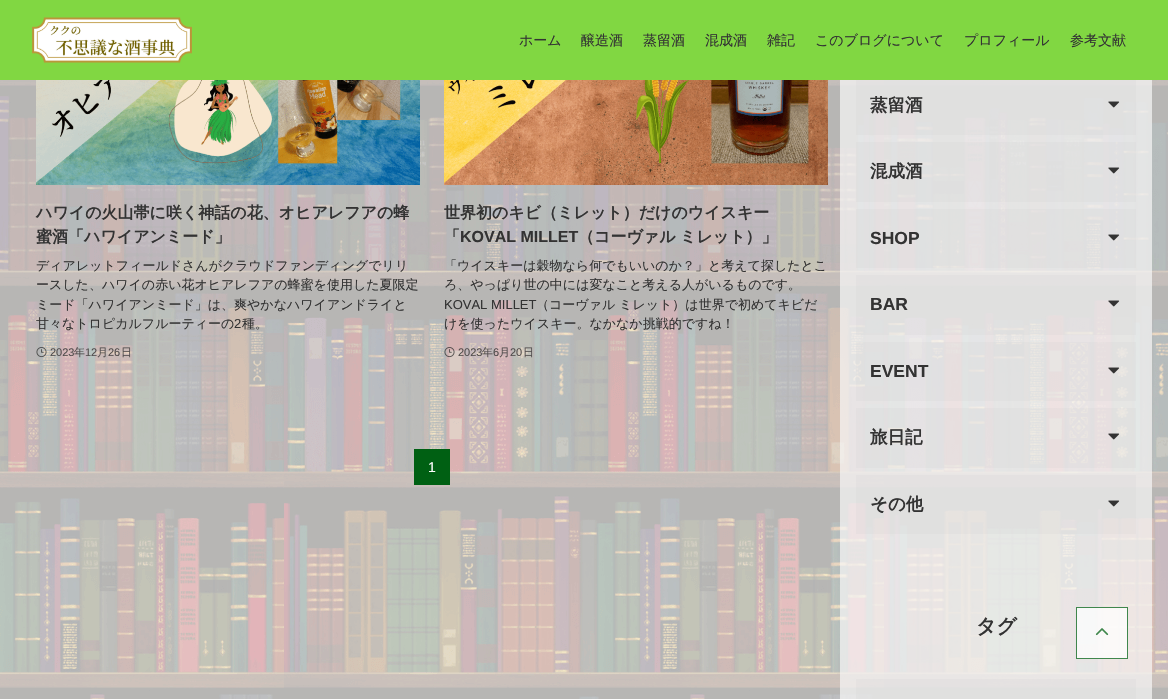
void draw(SkCanvas* canvas) {
  SkPaint paint;
  paint.setAntiAlias(true);
  auto face = [&](const char* family, int weight, float size, bool italic = false) {
    SkFontStyle style(weight, SkFontStyle::kNormal_Width,
      italic ? SkFontStyle::kItalic_Slant : SkFontStyle::kUpright_Slant);
    SkFont result(fontMgr->matchFamilyStyle(family, style), size);
    result.setSubpixel(true);
    return result;
  };
  auto paste = [&](const char* path, float x, float y, float w, float h) {
    auto image = SkImages::DeferredFromEncodedData(SkData::MakeFromFileName(path));
    canvas->drawImageRect(image, SkRect::MakeXYWH(x, y, w, h), SkSamplingOptions());
  };
  canvas->clear(0xffffffff);
  paint.setColor(0xff81d742);
  canvas->drawRect(SkRect::MakeXYWH(0, 0, 1168, 80), paint);
  paste("img/1.png", 32, 17, 160, 46);
  paste("img/2.png", 0, 80, 1168, 619);
  paste("img/3.png", 36, 80, 384, 105);
  paste("img/4.png", 36, 347, 11, 11);
  paste("img/5.png", 444, 80, 384, 105);
  paste("img/6.png", 444, 347, 11, 11);
  {
    const struct { float x, y, w, h; SkColor color; } items[] = {
      {414, 449, 36, 36, 0xff006013},
      {840, 80, 312, 619, 0xb3f7f7f7},
      {856, 80, 280, 55, 0x26c7c7c7},
    };
    for (auto [x, y, w, h, color] : items) {
      paint.setColor(color);
      canvas->drawRect(SkRect::MakeXYWH(x, y, w, h), paint);
    }
  }
  paste("img/7.png", 1108, 101, 12, 7);
  canvas->drawRect(SkRect::MakeXYWH(856, 142, 280, 60), paint);
  paste("img/8.png", 1108, 167, 12, 7);
  canvas->drawRect(SkRect::MakeXYWH(856, 209, 280, 59), paint);
  paste("img/9.png", 1108, 234, 12, 7);
  canvas->drawRect(SkRect::MakeXYWH(856, 275, 280, 60), paint);
  paste("img/10.png", 1108, 300, 12, 7);
  canvas->drawRect(SkRect::MakeXYWH(856, 342, 280, 59), paint);
  paste("img/11.png", 1108, 367, 12, 7);
  canvas->drawRect(SkRect::MakeXYWH(856, 408, 280, 60), paint);
  paste("img/12.png", 1108, 433, 12, 7);
  canvas->drawRect(SkRect::MakeXYWH(856, 475, 280, 59), paint);
  paste("img/7.png", 1108, 500, 12, 7);
  canvas->drawRect(SkRect::MakeXYWH(856, 679, 280, 20), paint);
  paint.setColor(0xbfffffff);
  canvas->drawRect(SkRect::MakeXYWH(1076, 607, 52, 52), paint);
  paint.setStroke(true);
  paint.setStrokeWidth(1);
  paint.setColor(0xbf006013);
  canvas->drawRect(SkRect::MakeXYWH(1076.5f, 607.5f, 51, 51), paint);
  paste("img/13.png", 1095, 628, 14, 8);
  auto f0 = face("WenQuanYi Zen Hei", 500, 14);
  paint.setStroke(false);
  paint.setColor(0xff333333);
  {
    const struct { const char* s; float x, y; } items[] = {
      {"ホーム", 519, 45},
      {"醸造酒", 581, 45},
      {"蒸留酒", 643, 45},
      {"混成酒", 705, 45},
      {"雑記", 767, 45},
      {"このブログについて", 815, 45},
      {"プロフィール", 964, 45},
      {"参考文献", 1070, 45},
    };
    for (auto [s, x, y] : items) {
      canvas->drawString(s, x, y, f0, paint);
    }
  }
  auto f1 = face("WenQuanYi Zen Hei", 700, 16);
  canvas->drawString("ハワイの火山帯に咲く神話の花、オヒアレフアの蜂", 36, 218, f1, paint);
  canvas->drawString("蜜酒「ハワイアンミード」", 36, 242, f1, paint);
  auto f2 = face("WenQuanYi Zen Hei", 500, 13);
  {
    const struct { const char* s; float x, y; } items[] = {
      {"ディアレットフィールドさんがクラウドファンディングでリリ", 36, 270},
      {"ースした、ハワイの赤い花オヒアレフアの蜂蜜を使用した夏限定", 36, 289},
      {"ミード「ハワイアンミード」は、爽やかなハワイアンドライと", 36, 309},
      {"甘々なトロピカルフルーティーの", 36, 328},
    };
    for (auto [s, x, y] : items) {
      canvas->drawString(s, x, y, f2, paint);
    }
  }
  auto f3 = face("Liberation Sans", 400, 13);
  canvas->drawString("2", 234, 328, f3, paint);
  canvas->drawString("種。", 242, 328, f2, paint);
  auto f4 = face("Liberation Sans", 400, 11);
  paint.setColor(0xff524e4e);
  canvas->drawString("2023", 50, 356, f4, paint);
  auto f5 = face("WenQuanYi Zen Hei", 500, 11);
  canvas->drawString("年", 74, 356, f5, paint);
  canvas->drawString("12", 85, 356, f4, paint);
  canvas->drawString("月", 97, 356, f5, paint);
  canvas->drawString("26", 108, 356, f4, paint);
  canvas->drawString("日", 121, 356, f5, paint);
  paint.setColor(0xff333333);
  canvas->drawString("世界初のキビ（ミレット）だけのウイスキー", 444, 218, f1, paint);
  canvas->drawString("「", 444, 242, f1, paint);
  auto f6 = face("Liberation Sans", 700, 16);
  canvas->drawString("KOVAL MILLET", 460, 242, f6, paint);
  canvas->drawString("（コーヴァル", 578, 242, f1, paint);
  canvas->drawString("ミレット）」", 680, 242, f1, paint);
  canvas->drawString("「ウイスキーは穀物なら何でもいいのか？」と考えて探したとこ", 444, 270, f2, paint);
  canvas->drawString("ろ、やっぱり世の中には変なこと考える人がいるものです。", 444, 289, f2, paint);
  canvas->drawString("KOVAL MILLET", 444, 309, f3, paint);
  canvas->drawString("（コーヴァル ミレット）は世界で初めてキビだ", 536, 309, f2, paint);
  canvas->drawString("けを使ったウイスキー。なかなか挑戦的ですね！", 444, 328, f2, paint);
  paint.setColor(0xff524e4e);
  canvas->drawString("2023", 458, 356, f4, paint);
  canvas->drawString("年", 482, 356, f5, paint);
  canvas->drawString("6", 493, 356, f4, paint);
  canvas->drawString("月", 499, 356, f5, paint);
  canvas->drawString("20", 510, 356, f4, paint);
  canvas->drawString("日", 523, 356, f5, paint);
  auto f7 = face("Liberation Sans", 400, 14);
  paint.setColor(0xffffffff);
  canvas->drawString("1", 428, 472, f7, paint);
  auto f8 = face("WenQuanYi Zen Hei", 700, 17.5f);
  paint.setColor(0xff333333);
  canvas->drawString("蒸留酒", 870, 111, f8, paint);
  canvas->drawString("混成酒", 870, 177, f8, paint);
  auto f9 = face("Liberation Sans", 700, 17.5f);
  {
    const struct { const char* s; float x, y; } items[] = {
      {"SHOP", 870, 244},
      {"BAR", 870, 310},
      {"EVENT", 870, 377},
    };
    for (auto [s, x, y] : items) {
      canvas->drawString(s, x, y, f9, paint);
    }
  }
  canvas->drawString("旅日記", 870, 443, f8, paint);
  canvas->drawString("その他", 870, 510, f8, paint);
  auto f10 = face("WenQuanYi Zen Hei", 700, 20);
  canvas->drawString("タグ", 976, 633, f10, paint);
}
